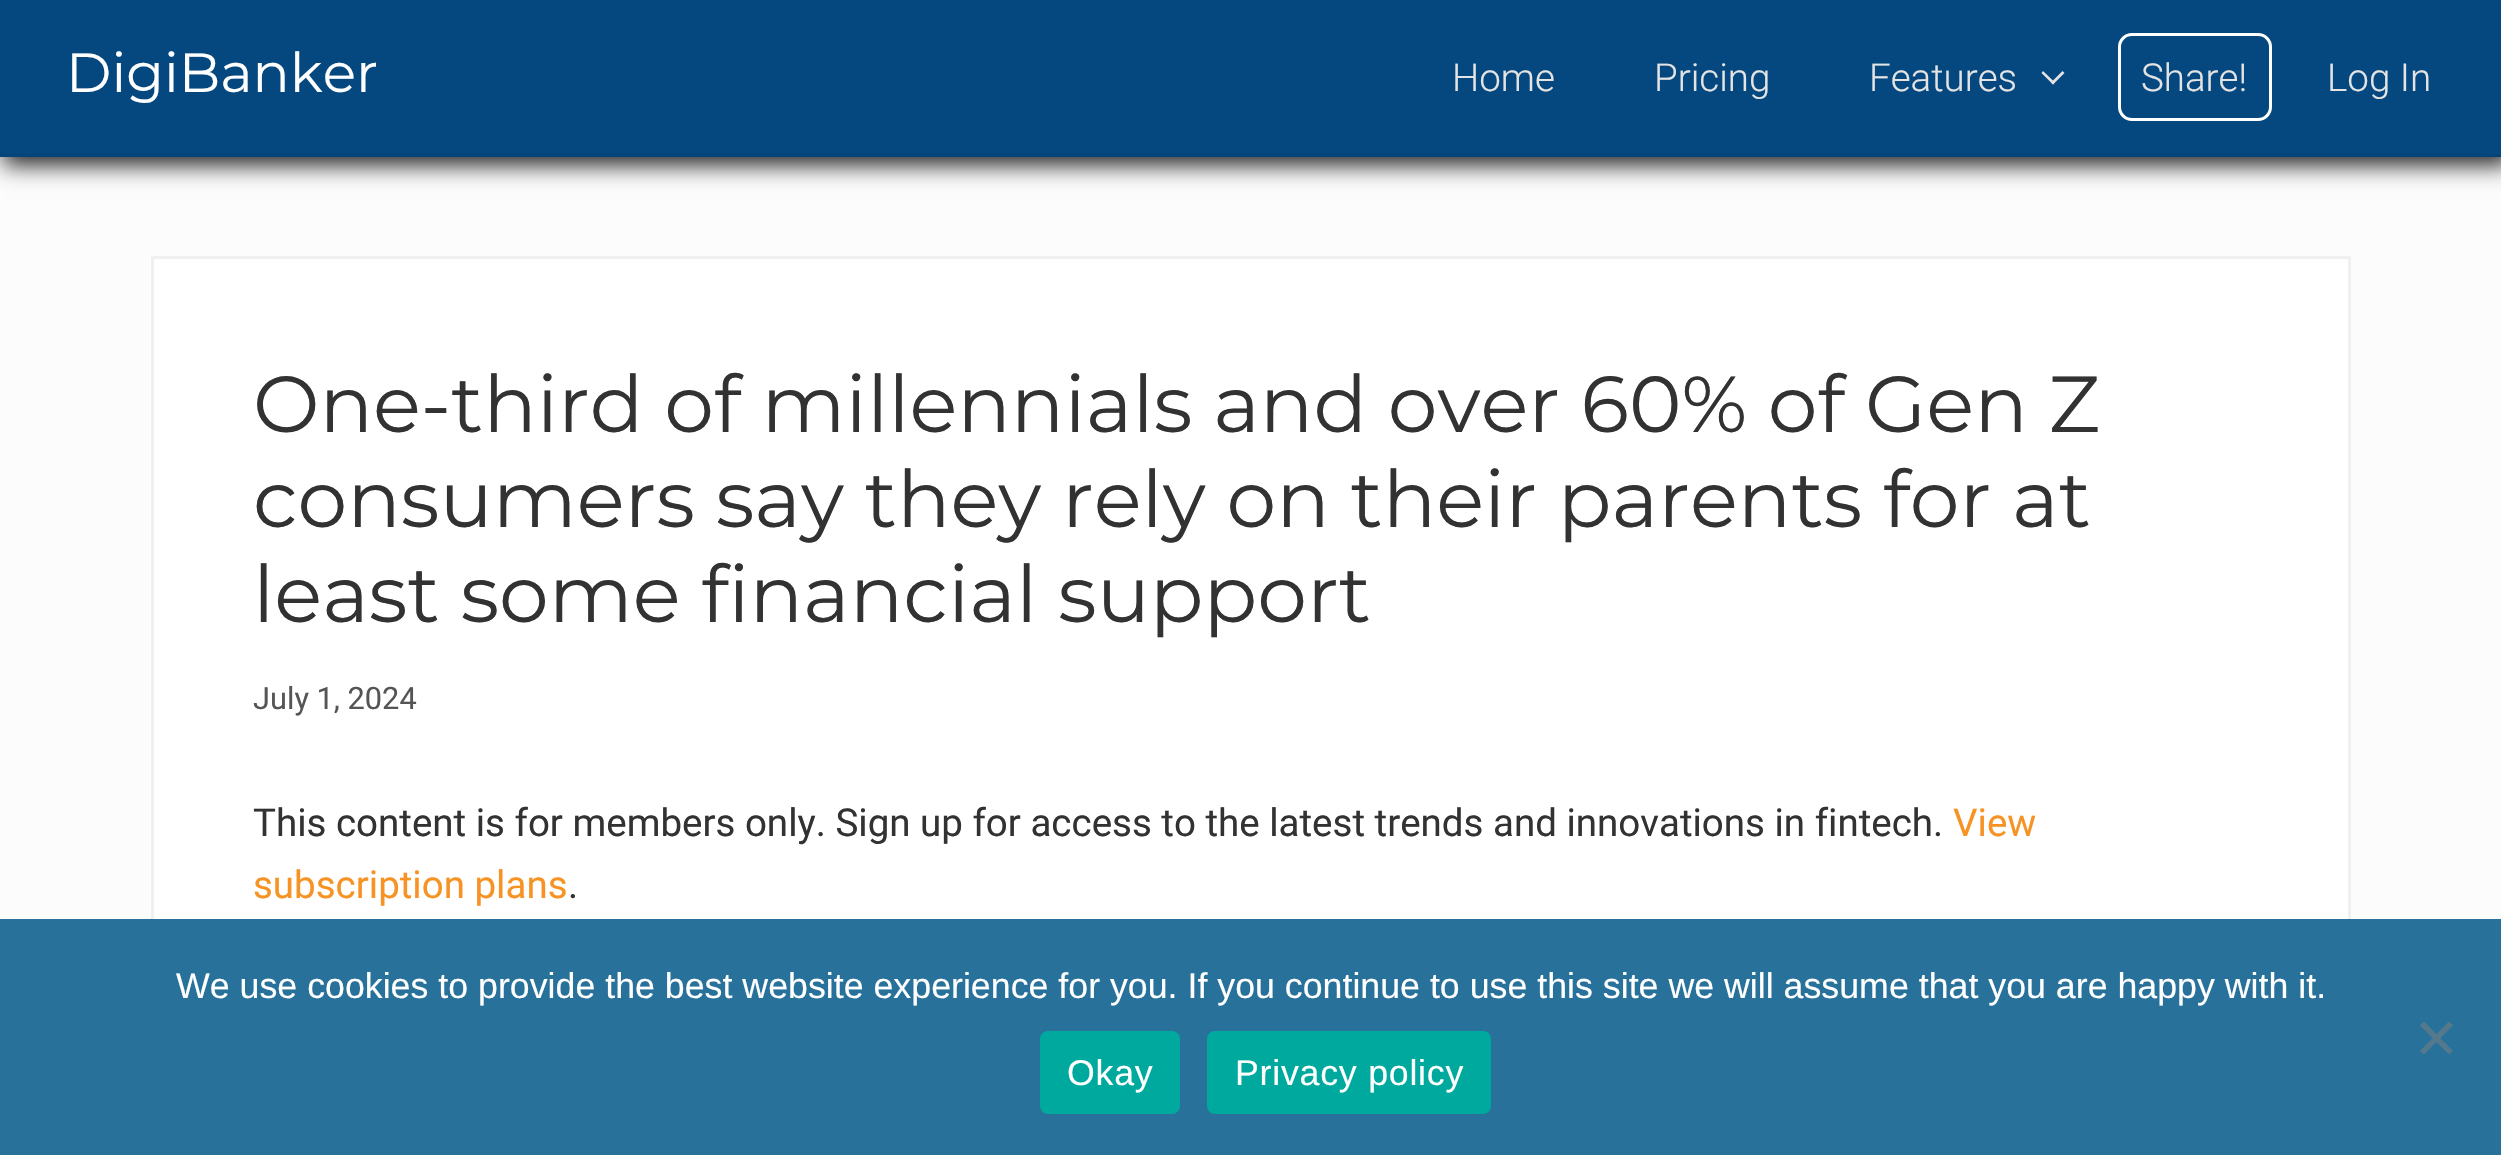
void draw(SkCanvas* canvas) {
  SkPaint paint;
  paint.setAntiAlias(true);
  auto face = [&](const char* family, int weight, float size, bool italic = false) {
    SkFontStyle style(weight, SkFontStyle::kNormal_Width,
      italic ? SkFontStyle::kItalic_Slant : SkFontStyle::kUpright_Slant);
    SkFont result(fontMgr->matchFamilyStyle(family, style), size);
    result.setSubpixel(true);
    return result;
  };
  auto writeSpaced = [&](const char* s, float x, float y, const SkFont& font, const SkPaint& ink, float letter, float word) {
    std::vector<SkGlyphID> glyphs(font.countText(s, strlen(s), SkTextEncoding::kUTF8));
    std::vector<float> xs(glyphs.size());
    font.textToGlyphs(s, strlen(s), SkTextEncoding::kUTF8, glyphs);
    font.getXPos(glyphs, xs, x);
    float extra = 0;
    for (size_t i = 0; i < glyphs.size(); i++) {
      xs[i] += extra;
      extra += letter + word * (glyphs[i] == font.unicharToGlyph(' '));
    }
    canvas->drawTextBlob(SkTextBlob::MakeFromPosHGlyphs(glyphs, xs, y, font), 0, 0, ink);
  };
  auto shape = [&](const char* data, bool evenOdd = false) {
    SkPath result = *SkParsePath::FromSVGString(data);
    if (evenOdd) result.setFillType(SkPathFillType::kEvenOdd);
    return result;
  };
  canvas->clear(0xfffcfcfc);
  paint.setColor(0xff222222);
  paint.setMaskFilter(SkMaskFilter::MakeBlur(kNormal_SkBlurStyle, 11));
  canvas->drawRect(SkRect::MakeXYWH(3, 3, 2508, 162), paint);
  paint.setMaskFilter(nullptr);
  paint.setColor(0xff05487f);
  canvas->drawRect(SkRect::MakeXYWH(0, 0, 2501, 154), paint);
  paint.setColor(0xff054479);
  canvas->drawRect(SkRect::MakeXYWH(0, 154, 2501, 3), paint);
  paint.setColor(0xffe4e4e4);
  canvas->drawPath(shape("M2062.5 71L2064.5 73L2053 84.5L2051 82.5Z"), paint);
  canvas->drawPath(shape("M2043 71L2055 82.5L2053 84.5L2041.5 73Z"), paint);
  paint.setStroke(true);
  paint.setStrokeWidth(3);
  paint.setColor(0xffffffff);
  canvas->drawRoundRect(SkRect::MakeXYWH(2119.5f, 34.5f, 151, 85), 12.5f, 12.5f, paint);
  paint.setStroke(false);
  canvas->drawRect(SkRect::MakeXYWH(154, 259, 2194, 660), paint);
  paint.setStroke(true);
  paint.setColor(0xfff0f0f0);
  canvas->drawRect(SkRect::MakeXYWH(152.5f, 257.5f, 2197, 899), paint);
  paint.setStroke(false);
  paint.setColor(0xff27719a);
  canvas->drawRect(SkRect::MakeXYWH(0, 919, 2501, 236), paint);
  paint.setColor(0xff54798d);
  canvas->drawPath(shape("M2449 1021.5L2453 1025.5L2424 1054.5L2420 1051Z"), paint);
  canvas->drawPath(shape("M2420 1025.5L2424 1021.5L2453 1051L2449 1054.5Z"), paint);
  paint.setColor(0xff00a99d);
  canvas->drawRoundRect(SkRect::MakeXYWH(1040, 1031, 140, 83), 8, 8, paint);
  canvas->drawRoundRect(SkRect::MakeXYWH(1207, 1031, 284, 83), 8, 8, paint);
  auto f0 = face("Montserrat", 400, 55);
  paint.setColor(0xffffffff);
  canvas->drawString("DigiBanker", 66, 92, f0, paint);
  auto f1 = face("Roboto", 300, 38.5f);
  paint.setColor(0xffe4e4e4);
  {
    const struct { const char* s; float x, y; } items[] = {
      {"Home", 1452, 91},
      {"Pricing", 1654, 91},
      {"Features", 1869, 91},
      {"Share!", 2141, 91},
      {"Log In", 2327, 91},
    };
    for (auto [s, x, y] : items) {
      canvas->drawString(s, x, y, f1, paint);
    }
  }
  auto f2 = face("Montserrat", 400, 79.2f);
  paint.setColor(0xff323232);
  {
    const struct { const char* s; float x, y; } items[] = {
      {"One-third of millennials and over 60% of Gen Z", 253, 432},
      {"consumers say they rely on their parents for at", 253, 527},
      {"least some financial support", 253, 622},
    };
    for (auto [s, x, y] : items) {
      canvas->drawString(s, x, y, f2, paint);
    }
  }
  auto f3 = face("Roboto", 400, 30.75f);
  paint.setColor(0xff555555);
  canvas->drawString("July 1, 2024", 253, 709, f3, paint);
  auto f4 = face("Roboto", 400, 38.5f);
  paint.setColor(0xff323232);
  canvas->drawString("This content is for members only. Sign up for access to the latest trends and innovations in fintech.", 253, 836, f4, paint);
  paint.setColor(0xfff79324);
  canvas->drawString("View", 1953, 836, f4, paint);
  canvas->drawString("subscription plans", 253, 898, f4, paint);
  paint.setColor(0xff323232);
  canvas->drawString(".", 568, 898, f4, paint);
  auto f5 = face("Liberation Sans", 400, 35.75f);
  paint.setColor(0xffffffff);
  canvas->drawString("We use cookies to provide the best website experience for you. If you continue to use this site we will assume that you are happy with it.", 176, 998, f5, paint);
  writeSpaced("Okay", 1067, 1085, f5, paint, 0.75f, 0);
  writeSpaced("Privacy policy", 1235, 1085, f5, paint, 0.75f, 0);
}
